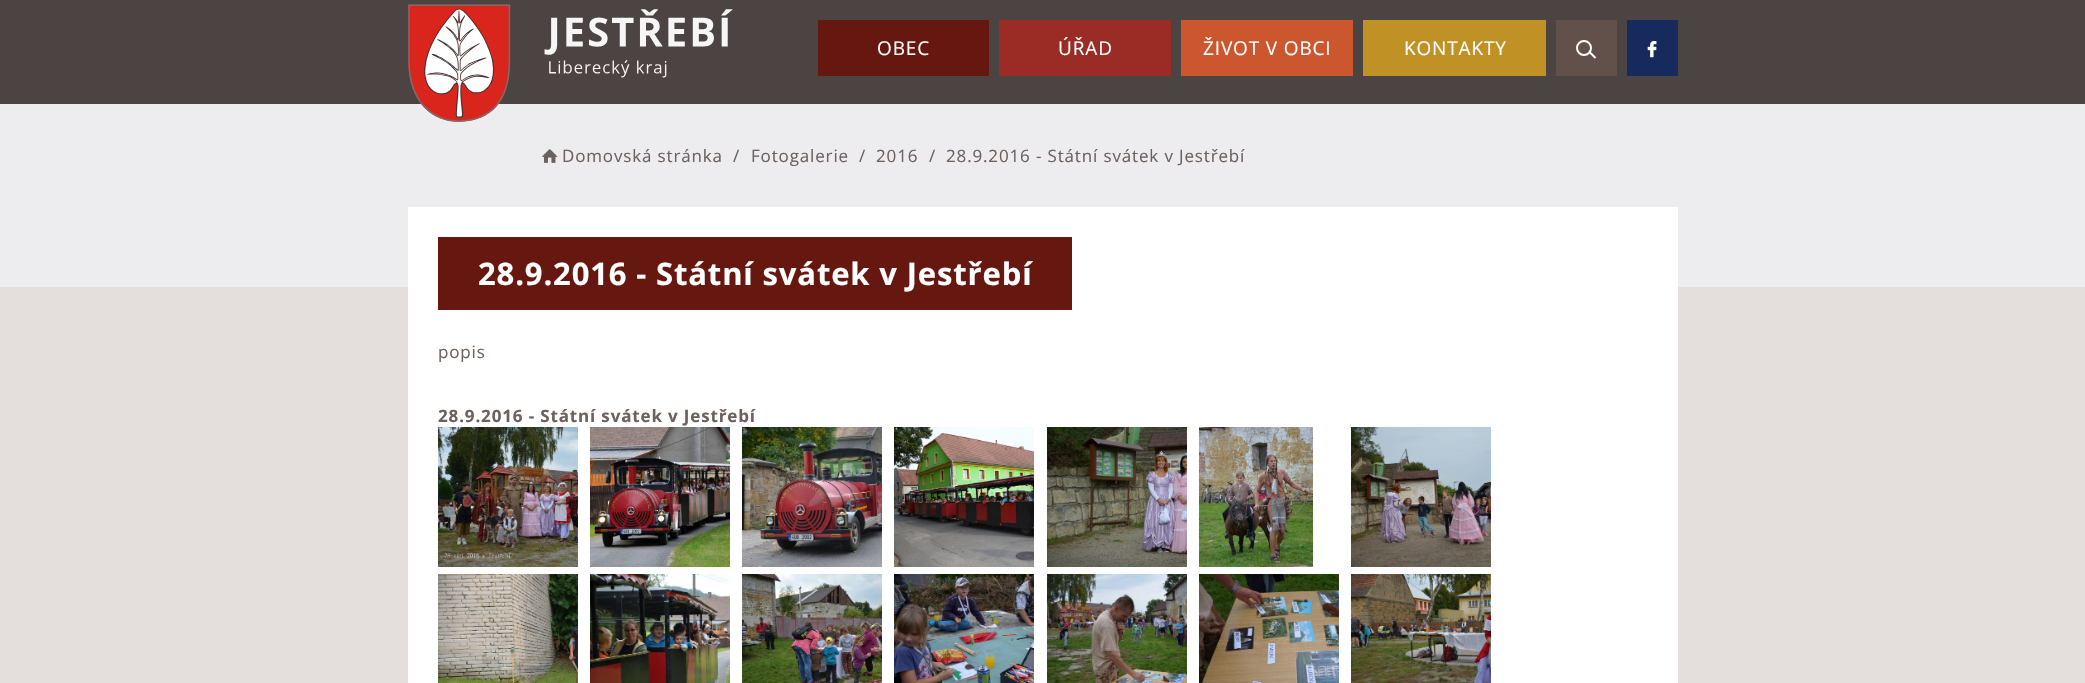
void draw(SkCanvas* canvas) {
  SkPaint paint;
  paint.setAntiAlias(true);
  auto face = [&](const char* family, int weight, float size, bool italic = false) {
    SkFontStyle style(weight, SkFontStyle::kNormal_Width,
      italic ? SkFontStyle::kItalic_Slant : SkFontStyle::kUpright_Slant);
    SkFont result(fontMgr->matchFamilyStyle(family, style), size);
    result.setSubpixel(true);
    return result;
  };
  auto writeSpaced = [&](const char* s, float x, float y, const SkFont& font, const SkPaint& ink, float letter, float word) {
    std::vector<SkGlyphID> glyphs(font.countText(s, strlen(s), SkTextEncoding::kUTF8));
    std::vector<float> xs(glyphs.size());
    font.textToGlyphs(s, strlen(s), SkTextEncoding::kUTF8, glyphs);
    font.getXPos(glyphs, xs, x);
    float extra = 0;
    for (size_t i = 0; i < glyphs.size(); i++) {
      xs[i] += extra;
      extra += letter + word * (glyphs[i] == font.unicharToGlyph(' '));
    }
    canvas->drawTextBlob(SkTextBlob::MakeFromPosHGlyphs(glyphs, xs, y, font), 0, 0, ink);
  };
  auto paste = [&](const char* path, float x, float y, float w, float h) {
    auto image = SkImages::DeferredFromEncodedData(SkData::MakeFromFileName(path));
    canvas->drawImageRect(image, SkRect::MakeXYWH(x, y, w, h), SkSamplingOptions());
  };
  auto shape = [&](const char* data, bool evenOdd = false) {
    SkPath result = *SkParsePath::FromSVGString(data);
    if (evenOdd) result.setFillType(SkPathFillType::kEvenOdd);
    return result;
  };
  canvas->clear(0xffe4dedc);
  paint.setColor(0xff4c4343);
  canvas->drawRect(SkRect::MakeXYWH(0, 0, 2085, 104), paint);
  paint.setColor(0xffededef);
  canvas->drawRect(SkRect::MakeXYWH(0, 104, 2085, 183), paint);
  paste("img/1.png", 408, 4, 325, 118);
  {
    const struct { float x, y, w, h; SkColor color; } items[] = {
      {818, 20, 171, 56, 0xff661810},
      {999, 20, 172, 56, 0xff9a2b25},
      {1181, 20, 172, 56, 0xffcc562e},
      {1363, 20, 183, 56, 0xffc09226},
      {1556, 20, 61, 56, 0xff62514b},
    };
    for (auto [x, y, w, h, color] : items) {
      paint.setColor(color);
      canvas->drawRect(SkRect::MakeXYWH(x, y, w, h), paint);
    }
  }
  paint.setStroke(true);
  paint.setStrokeWidth(2);
  paint.setColor(0xfffffff8);
  canvas->drawCircle(1584, 48, 7, paint);
  canvas->drawPath(shape("M1590 52.5L1595.5 58"), paint);
  paint.setStroke(false);
  paint.setColor(0xff172a5e);
  canvas->drawRect(SkRect::MakeXYWH(1627, 20, 51, 56), paint);
  paste("img/2.png", 1647, 41, 10, 17);
  paste("img/3.png", 542, 149, 16, 14);
  paint.setColor(0xffffffff);
  canvas->drawRect(SkRect::MakeXYWH(408, 207, 1270, 476), paint);
  paint.setColor(0xff661810);
  canvas->drawRect(SkRect::MakeXYWH(438, 237, 634, 73), paint);
  paste("img/4.png", 438, 427, 140, 140);
  paste("img/5.png", 590, 427, 140, 140);
  paste("img/6.png", 742, 427, 140, 140);
  paste("img/7.png", 894, 427, 140, 140);
  paste("img/8.png", 1047, 427, 140, 140);
  paste("img/9.png", 1199, 427, 114, 140);
  paste("img/10.png", 1351, 427, 140, 140);
  paste("img/11.png", 438, 574, 140, 109);
  paste("img/12.png", 590, 574, 140, 109);
  paste("img/13.png", 742, 574, 140, 109);
  paste("img/14.png", 894, 574, 140, 109);
  paste("img/15.png", 1047, 574, 140, 109);
  paste("img/16.png", 1199, 574, 140, 109);
  paste("img/17.png", 1351, 574, 140, 109);
  auto f0 = face("Open Sans", 400, 19);
  paint.setColor(0xffffffff);
  {
    const struct { const char* s; float x, y; } items[] = {
      {"OBEC", 877, 55},
      {"ÚŘAD", 1058, 55},
      {"ŽIVOT V OBCI", 1203, 55},
      {"KONTAKTY", 1404, 55},
    };
    for (auto [s, x, y] : items) {
      writeSpaced(s, x, y, f0, paint, 0.85f, 0);
    }
  }
  auto f1 = face("Open Sans", 400, 17);
  paint.setColor(0xff6d615d);
  {
    const struct { const char* s; float x, y; } items[] = {
      {"Domovská stránka", 562, 162},
      {"/", 733, 162},
      {"Fotogalerie", 751, 162},
      {"/", 859, 162},
      {"2016", 876, 162},
      {"/", 929, 162},
      {"28.9.2016 - Státní svátek v Jestřebí", 946, 162},
    };
    for (auto [s, x, y] : items) {
      writeSpaced(s, x, y, f1, paint, 0.85f, 0);
    }
  }
  auto f2 = face("Open Sans", 700, 31);
  paint.setColor(0xffffffff);
  writeSpaced("28.9.2016 - Státní svátek v Jestřebí", 478, 285, f2, paint, 0.85f, 0);
  paint.setColor(0xff6d615d);
  writeSpaced("popis", 438, 358, f1, paint, 0.85f, 0);
  auto f3 = face("Open Sans", 700, 17);
  writeSpaced("28.9.2016 - Státní svátek v Jestřebí", 438, 422, f3, paint, 0.85f, 0);
}
